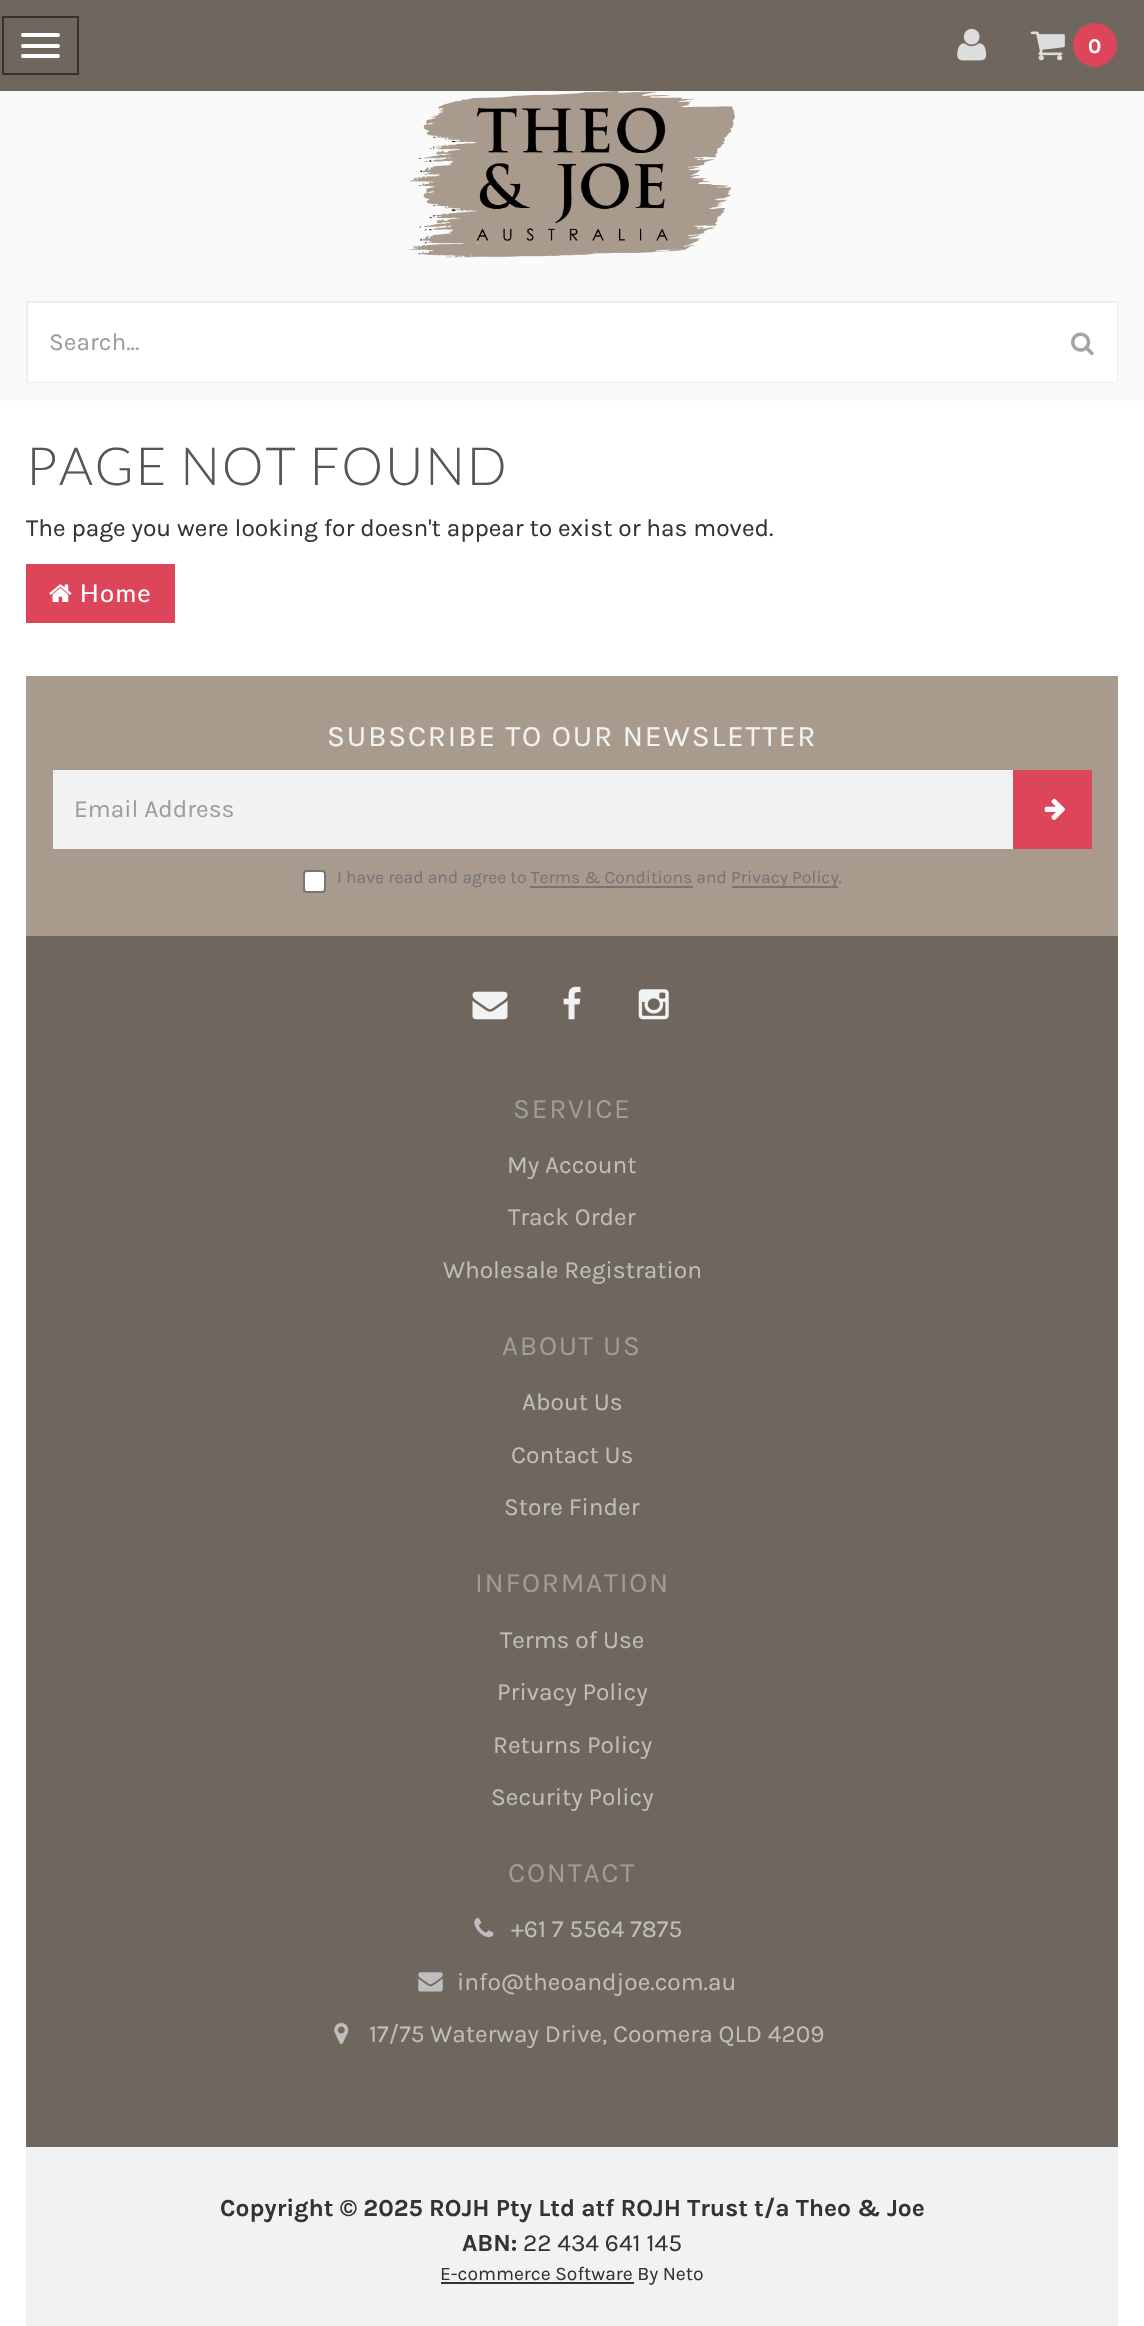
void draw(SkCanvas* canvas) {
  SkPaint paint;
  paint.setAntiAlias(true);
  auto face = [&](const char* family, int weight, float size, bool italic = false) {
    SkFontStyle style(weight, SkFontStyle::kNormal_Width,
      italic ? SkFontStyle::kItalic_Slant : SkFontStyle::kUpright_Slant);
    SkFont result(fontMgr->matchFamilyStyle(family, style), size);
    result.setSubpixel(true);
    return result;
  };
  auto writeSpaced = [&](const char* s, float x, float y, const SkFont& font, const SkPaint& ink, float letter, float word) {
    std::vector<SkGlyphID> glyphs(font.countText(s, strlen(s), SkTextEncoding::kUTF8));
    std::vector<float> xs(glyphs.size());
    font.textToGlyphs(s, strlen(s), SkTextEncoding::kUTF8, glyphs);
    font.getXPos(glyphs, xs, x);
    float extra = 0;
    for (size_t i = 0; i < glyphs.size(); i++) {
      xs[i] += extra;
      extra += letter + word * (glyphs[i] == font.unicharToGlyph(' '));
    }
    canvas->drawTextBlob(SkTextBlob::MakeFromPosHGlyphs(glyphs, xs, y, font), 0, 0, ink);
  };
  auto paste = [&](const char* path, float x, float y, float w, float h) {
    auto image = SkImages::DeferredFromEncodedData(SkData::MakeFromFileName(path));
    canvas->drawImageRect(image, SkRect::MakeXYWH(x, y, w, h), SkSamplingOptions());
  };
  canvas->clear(0xffffffff);
  paint.setColor(0xff6f665d);
  canvas->drawRect(SkRect::MakeXYWH(0, 0, 1144, 91), paint);
  paint.setStroke(true);
  paint.setStrokeWidth(2);
  paint.setColor(0xff333333);
  canvas->drawRect(SkRect::MakeXYWH(3, 17, 75, 57), paint);
  paint.setStroke(false);
  paint.setColor(0xffffffff);
  canvas->drawRoundRect(SkRect::MakeXYWH(21, 33, 39, 4), 2, 2, paint);
  canvas->drawRoundRect(SkRect::MakeXYWH(21, 44, 39, 4), 2, 2, paint);
  canvas->drawRoundRect(SkRect::MakeXYWH(21, 54, 39, 4), 2, 2, paint);
  paste("img/1.png", 957, 28, 30, 33);
  paste("img/2.png", 1030, 31, 35, 30);
  paint.setColor(0xffdc455a);
  canvas->drawCircle(1095, 45, 22, paint);
  paint.setColor(0xfffafafa);
  canvas->drawRect(SkRect::MakeXYWH(0, 91, 1144, 310), paint);
  paste("img/3.png", 409, 91, 326, 167);
  paint.setStroke(true);
  paint.setColor(0xffeeeeee);
  canvas->drawRect(SkRect::MakeXYWH(27, 302, 1090, 80), paint);
  paint.setStroke(false);
  paint.setColor(0xffffffff);
  canvas->drawRect(SkRect::MakeXYWH(28, 303, 1089, 79), paint);
  paste("img/4.png", 1071, 332, 23, 24);
  paint.setColor(0xffdc455a);
  canvas->drawRect(SkRect::MakeXYWH(26, 564, 149, 59), paint);
  paste("img/5.png", 49, 584, 23, 18);
  {
    const struct { float x, y, w, h; SkColor color; } items[] = {
      {26, 676, 1092, 260, 0xffa89a8d},
      {53, 770, 960, 79, 0xfff1f2f2},
      {1013, 770, 79, 79, 0xffdc455a},
    };
    for (auto [x, y, w, h, color] : items) {
      paint.setColor(color);
      canvas->drawRect(SkRect::MakeXYWH(x, y, w, h), paint);
    }
  }
  paste("img/6.png", 1044, 798, 21, 22);
  paint.setColor(0xffffffff);
  canvas->drawRoundRect(SkRect::MakeXYWH(304, 871, 21, 21), 3, 3, paint);
  paint.setStroke(true);
  paint.setColor(0xff767676);
  canvas->drawRoundRect(SkRect::MakeXYWH(304, 871, 21, 21), 3, 3, paint);
  paint.setStroke(false);
  {
    const struct { float x, y, w, h; SkColor color; } items[] = {
      {732, 886, 106, 2, 0xff757575},
      {530, 886, 163, 2, 0xff757575},
      {26, 936, 1092, 1211, 0xff6f665d},
    };
    for (auto [x, y, w, h, color] : items) {
      paint.setColor(color);
      canvas->drawRect(SkRect::MakeXYWH(x, y, w, h), paint);
    }
  }
  paste("img/7.png", 472, 991, 36, 29);
  paste("img/8.png", 563, 986, 18, 34);
  paste("img/9.png", 638, 989, 31, 31);
  paste("img/10.png", 474, 1918, 20, 20);
  paste("img/11.png", 418, 1972, 25, 20);
  paste("img/12.png", 334, 2023, 15, 21);
  paint.setColor(0xfff1f2f2);
  canvas->drawRect(SkRect::MakeXYWH(26, 2147, 1092, 179), paint);
  paint.setColor(0xff333333);
  canvas->drawRect(SkRect::MakeXYWH(441, 2282, 193, 2), paint);
  auto f0 = face("Karla", 700, 21);
  paint.setColor(0xffffffff);
  canvas->drawString("0", 1088, 53, f0, paint);
  auto f1 = face("Karla", 400, 24.5f);
  paint.setColor(0xff9d9d9d);
  canvas->drawString("Search...", 49, 350, f1, paint);
  auto f2 = face("Lato", 300, 52.5f);
  paint.setColor(0xff55555a);
  writeSpaced("PAGE NOT FOUND", 26, 485, f2, paint, 1.75f, 0);
  paint.setColor(0xff333333);
  canvas->drawString("The page you were looking for doesn't appear to exist or has moved.", 26, 536, f1, paint);
  auto f3 = face("Lato", 400, 24.5f);
  paint.setColor(0xffffffff);
  writeSpaced("Home", 80, 602, f3, paint, 1.75f, 0);
  auto f4 = face("Karla", 400, 29.75f);
  paint.setColor(0xfff1f2f2);
  writeSpaced("SUBSCRIBE TO OUR NEWSLETTER", 327, 746, f4, paint, 1.75f, 0);
  paint.setColor(0xff9d9d9d);
  canvas->drawString("Email Address", 74, 817, f1, paint);
  auto f5 = face("Karla", 400, 17.5f);
  paint.setColor(0xff757575);
  canvas->drawString("I have read and agree to Terms & Conditions and", 337, 883, f5, paint);
  canvas->drawString("Privacy Policy.", 731, 883, f5, paint);
  auto f6 = face("Karla", 400, 28);
  paint.setColor(0xff9d9d9d);
  writeSpaced("SERVICE", 513, 1118, f6, paint, 1.75f, 0);
  paint.setColor(0xffbebebe);
  {
    const struct { const char* s; float x, y; } items[] = {
      {"My Account", 507, 1173},
      {"Track Order", 508, 1225},
      {"Wholesale Registration", 443, 1278},
    };
    for (auto [s, x, y] : items) {
      canvas->drawString(s, x, y, f1, paint);
    }
  }
  paint.setColor(0xff9d9d9d);
  writeSpaced("ABOUT US", 502, 1355, f6, paint, 1.75f, 0);
  paint.setColor(0xffbebebe);
  {
    const struct { const char* s; float x, y; } items[] = {
      {"About Us", 522, 1410},
      {"Contact Us", 511, 1463},
      {"Store Finder", 504, 1515},
    };
    for (auto [s, x, y] : items) {
      canvas->drawString(s, x, y, f1, paint);
    }
  }
  paint.setColor(0xff9d9d9d);
  writeSpaced("INFORMATION", 475, 1592, f6, paint, 1.75f, 0);
  paint.setColor(0xffbebebe);
  {
    const struct { const char* s; float x, y; } items[] = {
      {"Terms of Use", 500, 1648},
      {"Privacy Policy", 497, 1700},
      {"Returns Policy", 493, 1753},
      {"Security Policy", 491, 1805},
    };
    for (auto [s, x, y] : items) {
      canvas->drawString(s, x, y, f1, paint);
    }
  }
  paint.setColor(0xff9d9d9d);
  writeSpaced("CONTACT", 508, 1882, f6, paint, 1.75f, 0);
  paint.setColor(0xffbebebe);
  {
    const struct { const char* s; float x, y; } items[] = {
      {"+61 7 5564 7875", 511, 1937},
      {"info@theoandjoe.com.au", 457, 1990},
      {"17/75 Waterway Drive, Coomera QLD 4209", 369, 2042},
    };
    for (auto [s, x, y] : items) {
      canvas->drawString(s, x, y, f1, paint);
    }
  }
  auto f7 = face("Karla", 700, 24.5f);
  paint.setColor(0xff333333);
  canvas->drawString("Copyright © 2025 ROJH Pty Ltd atf ROJH Trust t/a Theo & Joe", 220, 2216, f7, paint);
  canvas->drawString("ABN:", 462, 2251, f7, paint);
  canvas->drawString("22 434 641 145", 523, 2251, f1, paint);
  auto f8 = face("Karla", 400, 19.25f);
  canvas->drawString("E-commerce Software By Neto", 440, 2280, f8, paint);
}
